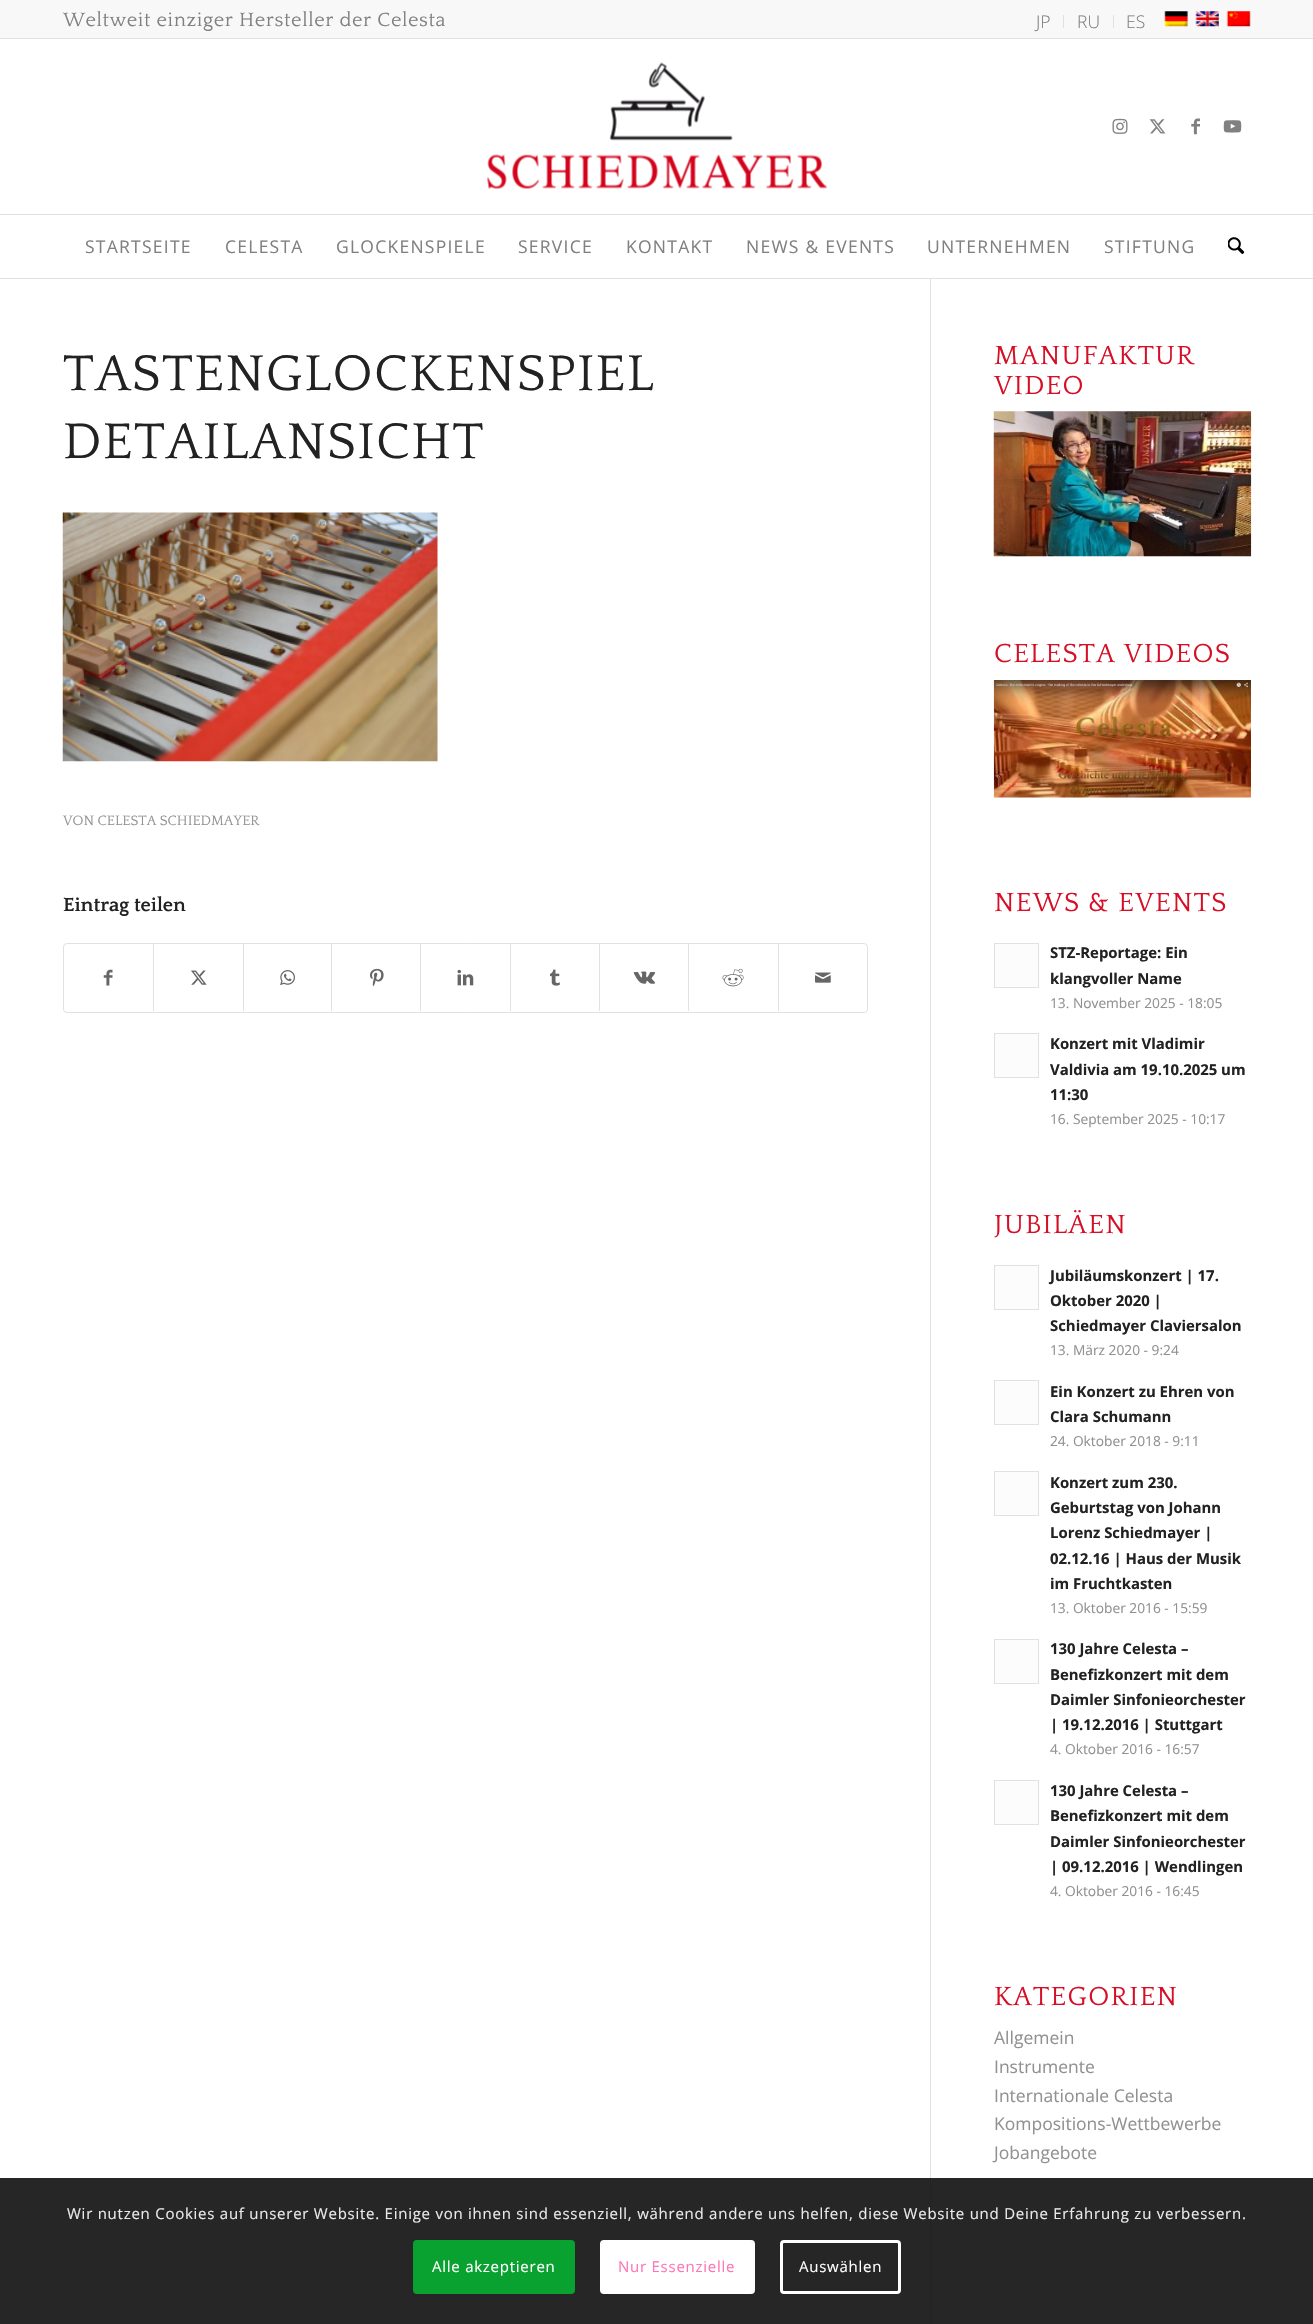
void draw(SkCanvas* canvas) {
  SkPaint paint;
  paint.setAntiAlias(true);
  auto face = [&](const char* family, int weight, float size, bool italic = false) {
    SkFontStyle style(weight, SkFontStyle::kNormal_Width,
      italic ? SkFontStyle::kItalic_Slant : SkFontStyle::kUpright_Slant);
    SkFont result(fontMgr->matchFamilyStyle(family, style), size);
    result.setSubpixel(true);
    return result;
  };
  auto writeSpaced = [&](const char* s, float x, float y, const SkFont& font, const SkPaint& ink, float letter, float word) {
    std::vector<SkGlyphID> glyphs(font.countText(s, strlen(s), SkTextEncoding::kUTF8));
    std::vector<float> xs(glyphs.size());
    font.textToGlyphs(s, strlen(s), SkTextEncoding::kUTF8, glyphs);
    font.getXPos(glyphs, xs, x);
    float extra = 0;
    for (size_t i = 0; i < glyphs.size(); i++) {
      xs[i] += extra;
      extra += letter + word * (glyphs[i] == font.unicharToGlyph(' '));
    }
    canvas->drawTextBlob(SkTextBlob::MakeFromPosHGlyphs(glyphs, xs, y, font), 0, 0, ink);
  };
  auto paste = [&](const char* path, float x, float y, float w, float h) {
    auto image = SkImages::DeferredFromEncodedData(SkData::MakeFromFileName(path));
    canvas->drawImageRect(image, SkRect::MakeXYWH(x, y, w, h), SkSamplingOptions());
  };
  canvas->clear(0xffffffff);
  {
    const struct { float x, y, w, h; SkColor color; } items[] = {
      {0, 0, 1313, 38, 0xfff8f8f8},
      {0, 38, 1313, 1, 0xffe1e1e1},
      {1063, 15, 1, 13, 0xffe1e1e1},
      {1113, 15, 1, 13, 0xffe1e1e1},
    };
    for (auto [x, y, w, h, color] : items) {
      paint.setColor(color);
      canvas->drawRect(SkRect::MakeXYWH(x, y, w, h), paint);
    }
  }
  paste("img/1.png", 1164, 11, 24, 16);
  paste("img/2.png", 1195, 11, 24, 16);
  paste("img/3.png", 1226, 11, 25, 16);
  canvas->drawRect(SkRect::MakeXYWH(0, 278, 1313, 1), paint);
  paste("img/4.png", 487, 62, 340, 127);
  paste("img/5.png", 1112, 118, 16, 16);
  paste("img/6.png", 1149, 119, 17, 15);
  paste("img/7.png", 1191, 118, 9, 17);
  paste("img/8.png", 1223, 120, 19, 13);
  canvas->drawRect(SkRect::MakeXYWH(0, 214, 1313, 1), paint);
  paste("img/9.png", 1228, 237, 17, 17);
  paste("img/10.png", 62, 512, 376, 250);
  paint.setStroke(true);
  paint.setStrokeWidth(1);
  canvas->drawRoundRect(SkRect::MakeXYWH(63.5f, 943.5f, 804, 69), 3.5f, 3.5f, paint);
  paste("img/11.png", 103, 969, 10, 17);
  paint.setStroke(false);
  canvas->drawRect(SkRect::MakeXYWH(153, 944, 1, 67), paint);
  paste("img/12.png", 191, 970, 16, 15);
  canvas->drawRect(SkRect::MakeXYWH(243, 944, 1, 67), paint);
  paste("img/13.png", 280, 970, 15, 16);
  canvas->drawRect(SkRect::MakeXYWH(331, 944, 1, 67), paint);
  paste("img/14.png", 370, 968, 14, 19);
  canvas->drawRect(SkRect::MakeXYWH(420, 944, 1, 67), paint);
  paste("img/15.png", 457, 969, 17, 17);
  canvas->drawRect(SkRect::MakeXYWH(510, 944, 1, 67), paint);
  paste("img/16.png", 550, 969, 10, 17);
  canvas->drawRect(SkRect::MakeXYWH(599, 944, 1, 67), paint);
  paste("img/17.png", 633, 971, 23, 13);
  canvas->drawRect(SkRect::MakeXYWH(688, 944, 1, 67), paint);
  paste("img/18.png", 722, 968, 22, 19);
  canvas->drawRect(SkRect::MakeXYWH(778, 944, 1, 67), paint);
  paste("img/19.png", 815, 972, 16, 11);
  canvas->drawRect(SkRect::MakeXYWH(930, 279, 1, 2045), paint);
  paste("img/20.png", 993, 411, 259, 146);
  paste("img/21.png", 993, 680, 258, 118);
  paint.setColor(0xfffcfcfc);
  canvas->drawRect(SkRect::MakeXYWH(994.5f, 943.5f, 44, 44), paint);
  paint.setStroke(true);
  paint.setColor(0xffe1e1e1);
  canvas->drawRect(SkRect::MakeXYWH(994.5f, 943.5f, 44, 44), paint);
  paint.setStroke(false);
  paint.setColor(0xfffcfcfc);
  canvas->drawRect(SkRect::MakeXYWH(994.5f, 1033.5f, 44, 44), paint);
  paint.setStroke(true);
  paint.setColor(0xffe1e1e1);
  canvas->drawRect(SkRect::MakeXYWH(994.5f, 1033.5f, 44, 44), paint);
  paint.setStroke(false);
  paint.setColor(0xfffcfcfc);
  canvas->drawRect(SkRect::MakeXYWH(994.5f, 1265.5f, 44, 44), paint);
  paint.setStroke(true);
  paint.setColor(0xffe1e1e1);
  canvas->drawRect(SkRect::MakeXYWH(994.5f, 1265.5f, 44, 44), paint);
  paint.setStroke(false);
  paint.setColor(0xfffcfcfc);
  canvas->drawRect(SkRect::MakeXYWH(994.5f, 1380.5f, 44, 44), paint);
  paint.setStroke(true);
  paint.setColor(0xffe1e1e1);
  canvas->drawRect(SkRect::MakeXYWH(994.5f, 1380.5f, 44, 44), paint);
  paint.setStroke(false);
  paint.setColor(0xfffcfcfc);
  canvas->drawRect(SkRect::MakeXYWH(994.5f, 1471.5f, 44, 44), paint);
  paint.setStroke(true);
  paint.setColor(0xffe1e1e1);
  canvas->drawRect(SkRect::MakeXYWH(994.5f, 1471.5f, 44, 44), paint);
  paint.setStroke(false);
  paint.setColor(0xfffcfcfc);
  canvas->drawRect(SkRect::MakeXYWH(994.5f, 1639.5f, 44, 44), paint);
  paint.setStroke(true);
  paint.setColor(0xffe1e1e1);
  canvas->drawRect(SkRect::MakeXYWH(994.5f, 1639.5f, 44, 44), paint);
  paint.setStroke(false);
  paint.setColor(0xfffcfcfc);
  canvas->drawRect(SkRect::MakeXYWH(994.5f, 1780.5f, 44, 44), paint);
  paint.setStroke(true);
  paint.setColor(0xffe1e1e1);
  canvas->drawRect(SkRect::MakeXYWH(994.5f, 1780.5f, 44, 44), paint);
  paint.setStroke(false);
  paint.setColor(0xd9000000);
  canvas->drawRect(SkRect::MakeXYWH(0, 2178, 1313, 146), paint);
  paint.setColor(0xff09a12f);
  canvas->drawRoundRect(SkRect::MakeXYWH(414.5f, 2241.5f, 159, 51), 2.5f, 2.5f, paint);
  paint.setStroke(true);
  paint.setStrokeWidth(3);
  canvas->drawRoundRect(SkRect::MakeXYWH(414.5f, 2241.5f, 159, 51), 2.5f, 2.5f, paint);
  paint.setStroke(false);
  paint.setColor(0xffffffff);
  canvas->drawRoundRect(SkRect::MakeXYWH(601.5f, 2241.5f, 152, 51), 2.5f, 2.5f, paint);
  paint.setStroke(true);
  canvas->drawRoundRect(SkRect::MakeXYWH(601.5f, 2241.5f, 152, 51), 2.5f, 2.5f, paint);
  canvas->drawRoundRect(SkRect::MakeXYWH(781.5f, 2241.5f, 118, 51), 2.5f, 2.5f, paint);
  auto f0 = face("Quattrocento", 400, 20);
  paint.setStroke(false);
  paint.setColor(0xff808080);
  writeSpaced("Weltweit einziger Hersteller der Celesta", 63, 26, f0, paint, 0.6f, 0);
  auto f1 = face("Open Sans", 300, 17.5f);
  {
    const struct { const char* s; float x, y; } items[] = {
      {"JP", 1036, 28},
      {"RU", 1077, 28},
      {"ES", 1126, 28},
    };
    for (auto [s, x, y] : items) {
      canvas->drawString(s, x, y, f1, paint);
    }
  }
  auto f2 = face("Open Sans", 400, 17.5f);
  {
    const struct { const char* s; float x, y; } items[] = {
      {"STARTSEITE", 85, 253},
      {"CELESTA", 225, 253},
      {"GLOCKENSPIELE", 336, 253},
      {"SERVICE", 518, 253},
      {"KONTAKT", 626, 253},
      {"NEWS & EVENTS", 746, 253},
      {"UNTERNEHMEN", 927, 253},
      {"STIFTUNG", 1104, 253},
    };
    for (auto [s, x, y] : items) {
      writeSpaced(s, x, y, f2, paint, 1.25f, 0);
    }
  }
  auto f3 = face("Quattrocento", 400, 52.5f);
  paint.setColor(0xff222222);
  writeSpaced("TASTENGLOCKENSPIEL", 63, 390, f3, paint, 1.25f, 0);
  writeSpaced("DETAILANSICHT", 63, 458, f3, paint, 1.25f, 0);
  auto f4 = face("Quattrocento", 400, 14.25f);
  paint.setColor(0xff919191);
  canvas->drawString("VON CELESTA SCHIEDMAYER", 63, 825, f4, paint);
  auto f5 = face("Quattrocento", 700, 20);
  paint.setColor(0xff222222);
  canvas->drawString("Eintrag teilen", 63, 911, f5, paint);
  auto f6 = face("Quattrocento", 400, 27.5f);
  paint.setColor(0xffd60f26);
  {
    const struct { const char* s; float x, y; } items[] = {
      {"MANUFAKTUR", 994, 364},
      {"VIDEO", 994, 394},
      {"CELESTA VIDEOS", 994, 662},
      {"NEWS & EVENTS", 994, 911},
    };
    for (auto [s, x, y] : items) {
      writeSpaced(s, x, y, f6, paint, 1.25f, 0);
    }
  }
  auto f7 = face("Open Sans", 700, 14.9f);
  paint.setColor(0xff222222);
  canvas->drawString("STZ-Reportage: Ein", 1050, 958, f7, paint);
  canvas->drawString("klangvoller Name", 1050, 984, f7, paint);
  auto f8 = face("Open Sans", 400, 13.75f);
  paint.setColor(0xff919191);
  canvas->drawString("13. November 2025 - 18:05", 1050, 1008, f8, paint);
  paint.setColor(0xff222222);
  {
    const struct { const char* s; float x, y; } items[] = {
      {"Konzert mit Vladimir", 1050, 1049},
      {"Valdivia am 19.10.2025 um", 1050, 1075},
      {"11:30", 1050, 1100},
    };
    for (auto [s, x, y] : items) {
      canvas->drawString(s, x, y, f7, paint);
    }
  }
  paint.setColor(0xff919191);
  canvas->drawString("16. September 2025 - 10:17", 1050, 1124, f8, paint);
  paint.setColor(0xffd60f26);
  writeSpaced("JUBILÄEN", 994, 1233, f6, paint, 1.25f, 0);
  paint.setColor(0xff222222);
  {
    const struct { const char* s; float x, y; } items[] = {
      {"Jubiläumskonzert | 17.", 1050, 1281},
      {"Oktober 2020 |", 1050, 1306},
      {"Schiedmayer Claviersalon", 1050, 1331},
    };
    for (auto [s, x, y] : items) {
      canvas->drawString(s, x, y, f7, paint);
    }
  }
  paint.setColor(0xff919191);
  canvas->drawString("13. März 2020 - 9:24", 1050, 1355, f8, paint);
  paint.setColor(0xff222222);
  canvas->drawString("Ein Konzert zu Ehren von", 1050, 1397, f7, paint);
  canvas->drawString("Clara Schumann", 1050, 1422, f7, paint);
  paint.setColor(0xff919191);
  canvas->drawString("24. Oktober 2018 - 9:11", 1050, 1446, f8, paint);
  paint.setColor(0xff222222);
  {
    const struct { const char* s; float x, y; } items[] = {
      {"Konzert zum 230.", 1050, 1488},
      {"Geburtstag von Johann", 1050, 1513},
      {"Lorenz Schiedmayer |", 1050, 1538},
      {"02.12.16 | Haus der Musik", 1050, 1564},
      {"im Fruchtkasten", 1050, 1589},
    };
    for (auto [s, x, y] : items) {
      canvas->drawString(s, x, y, f7, paint);
    }
  }
  paint.setColor(0xff919191);
  canvas->drawString("13. Oktober 2016 - 15:59", 1050, 1613, f8, paint);
  paint.setColor(0xff222222);
  {
    const struct { const char* s; float x, y; } items[] = {
      {"130 Jahre Celesta –", 1050, 1654},
      {"Benefizkonzert mit dem", 1050, 1680},
      {"Daimler Sinfonieorchester", 1050, 1705},
      {"| 19.12.2016 | Stuttgart", 1050, 1730},
    };
    for (auto [s, x, y] : items) {
      canvas->drawString(s, x, y, f7, paint);
    }
  }
  paint.setColor(0xff919191);
  canvas->drawString("4. Oktober 2016 - 16:57", 1050, 1754, f8, paint);
  paint.setColor(0xff222222);
  {
    const struct { const char* s; float x, y; } items[] = {
      {"130 Jahre Celesta –", 1050, 1796},
      {"Benefizkonzert mit dem", 1050, 1821},
      {"Daimler Sinfonieorchester", 1050, 1847},
      {"| 09.12.2016 | Wendlingen", 1050, 1872},
    };
    for (auto [s, x, y] : items) {
      canvas->drawString(s, x, y, f7, paint);
    }
  }
  paint.setColor(0xff919191);
  canvas->drawString("4. Oktober 2016 - 16:45", 1050, 1896, f8, paint);
  paint.setColor(0xffd60f26);
  writeSpaced("KATEGORIEN", 994, 2005, f6, paint, 1.25f, 0);
  paint.setColor(0xff919191);
  {
    const struct { const char* s; float x, y; } items[] = {
      {"Allgemein", 994, 2044},
      {"Instrumente", 994, 2073},
      {"Internationale Celesta", 994, 2102},
      {"Kompositions-Wettbewerbe", 994, 2130},
      {"Jobangebote", 994, 2159},
    };
    for (auto [s, x, y] : items) {
      canvas->drawString(s, x, y, f2, paint);
    }
  }
  auto f9 = face("Open Sans", 400, 15);
  paint.setColor(0xffe9e9e9);
  writeSpaced("Wir nutzen Cookies auf unserer Website. Einige von ihnen sind essenziell, während andere uns helfen, diese Website und Deine Erfahrung zu verbessern.", 67, 2219, f9, paint, 0.75f, 0);
  paint.setColor(0xffffffff);
  writeSpaced("Alle akzeptieren", 432, 2272, f9, paint, 0.75f, 0);
  paint.setColor(0xffff75b5);
  writeSpaced("Nur Essenzielle", 618, 2272, f9, paint, 0.75f, 0);
  paint.setColor(0xffffffff);
  writeSpaced("Auswählen", 799, 2272, f9, paint, 0.75f, 0);
}
